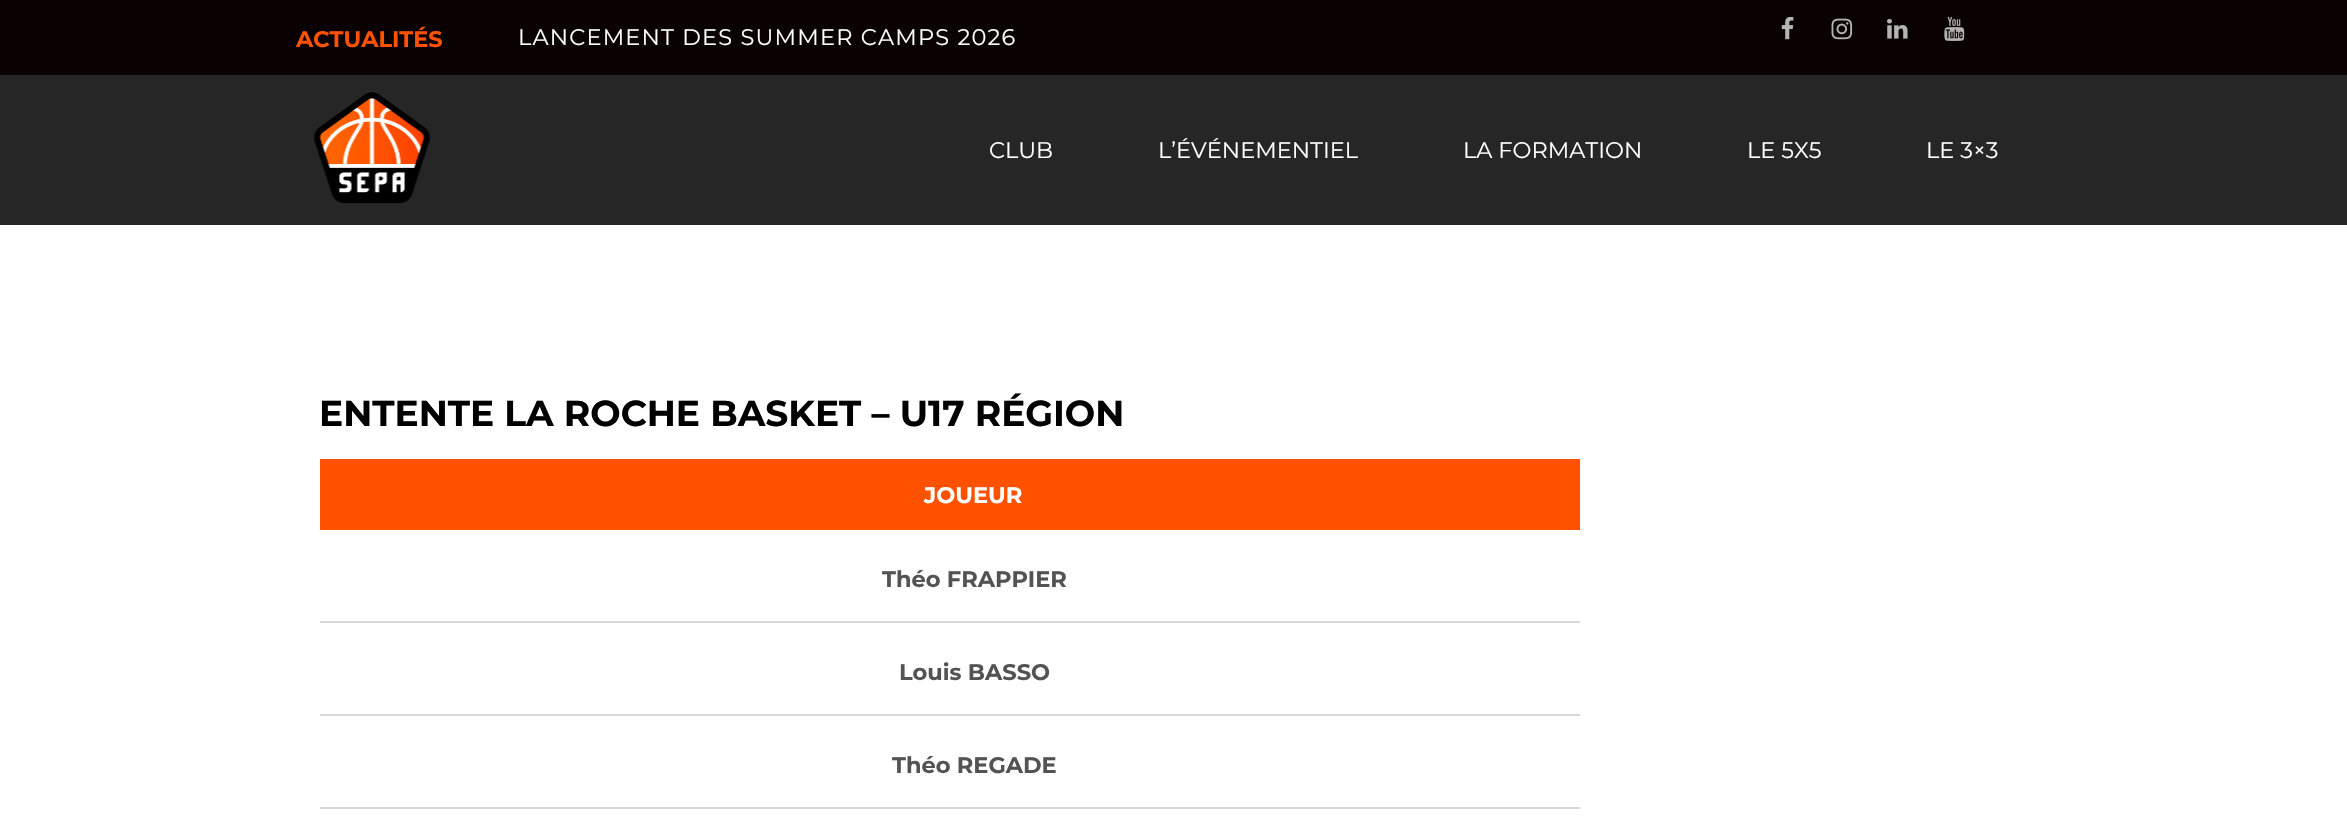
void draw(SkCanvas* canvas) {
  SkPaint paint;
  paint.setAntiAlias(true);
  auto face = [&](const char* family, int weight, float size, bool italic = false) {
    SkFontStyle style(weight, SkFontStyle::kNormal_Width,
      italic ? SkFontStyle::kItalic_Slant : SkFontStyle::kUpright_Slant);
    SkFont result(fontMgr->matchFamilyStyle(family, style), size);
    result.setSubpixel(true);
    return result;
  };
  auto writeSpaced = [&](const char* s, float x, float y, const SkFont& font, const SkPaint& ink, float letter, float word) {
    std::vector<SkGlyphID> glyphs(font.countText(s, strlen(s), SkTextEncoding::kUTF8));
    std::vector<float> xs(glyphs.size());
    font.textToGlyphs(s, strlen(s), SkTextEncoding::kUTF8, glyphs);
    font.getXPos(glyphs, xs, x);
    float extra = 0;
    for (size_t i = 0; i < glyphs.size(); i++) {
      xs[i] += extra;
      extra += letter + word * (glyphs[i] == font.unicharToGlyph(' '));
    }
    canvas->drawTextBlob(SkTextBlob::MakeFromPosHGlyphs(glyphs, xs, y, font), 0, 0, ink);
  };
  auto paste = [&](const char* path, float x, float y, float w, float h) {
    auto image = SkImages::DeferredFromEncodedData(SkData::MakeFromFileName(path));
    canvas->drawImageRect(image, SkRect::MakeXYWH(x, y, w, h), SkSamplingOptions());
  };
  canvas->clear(0xffffffff);
  paint.setColor(0xff0a0202);
  canvas->drawRect(SkRect::MakeXYWH(0, 0, 2347, 75), paint);
  paste("img/1.png", 1781, 16, 13, 24);
  paste("img/2.png", 1831, 18, 22, 22);
  paste("img/3.png", 1887, 18, 21, 21);
  paste("img/4.png", 1944, 16, 21, 25);
  paint.setColor(0xff262626);
  canvas->drawRect(SkRect::MakeXYWH(0, 75, 2347, 150), paint);
  paste("img/5.png", 313, 92, 118, 112);
  {
    const struct { float x, y, w, h; SkColor color; } items[] = {
      {320, 459, 1260, 71, 0xffff5200},
      {320, 621, 1260, 2, 0xffd8d8d8},
      {320, 714, 1260, 2, 0xffd8d8d8},
      {320, 807, 1260, 2, 0xffd8d8d8},
    };
    for (auto [x, y, w, h, color] : items) {
      paint.setColor(color);
      canvas->drawRect(SkRect::MakeXYWH(x, y, w, h), paint);
    }
  }
  auto f0 = face("Montserrat", 700, 22.5f);
  paint.setColor(0xffff5200);
  canvas->drawString("ACTUALITÉS", 296, 47, f0, paint);
  auto f1 = face("Montserrat", 400, 22.5f);
  paint.setColor(0xffffffff);
  writeSpaced("LANCEMENT DES SUMMER CAMPS 2026", 518, 45, f1, paint, 1.2f, 0);
  {
    const struct { const char* s; float x, y; } items[] = {
      {"CLUB", 989, 158},
      {"L’ÉVÉNEMENTIEL", 1158, 158},
      {"LA FORMATION", 1463, 158},
      {"LE 5X5", 1747, 158},
      {"LE 3×3", 1926, 158},
    };
    for (auto [s, x, y] : items) {
      canvas->drawString(s, x, y, f1, paint);
    }
  }
  auto f2 = face("Montserrat", 700, 36);
  paint.setColor(0xff000000);
  canvas->drawString("ENTENTE LA ROCHE BASKET – U17 RÉGION", 319, 426, f2, paint);
  paint.setColor(0xffffffff);
  canvas->drawString("JOUEUR", 924, 503, f0, paint);
  paint.setColor(0xff535353);
  {
    const struct { const char* s; float x, y; } items[] = {
      {"Théo FRAPPIER", 882, 587},
      {"Louis BASSO", 899, 680},
      {"Théo REGADE", 892, 773},
    };
    for (auto [s, x, y] : items) {
      canvas->drawString(s, x, y, f0, paint);
    }
  }
}
